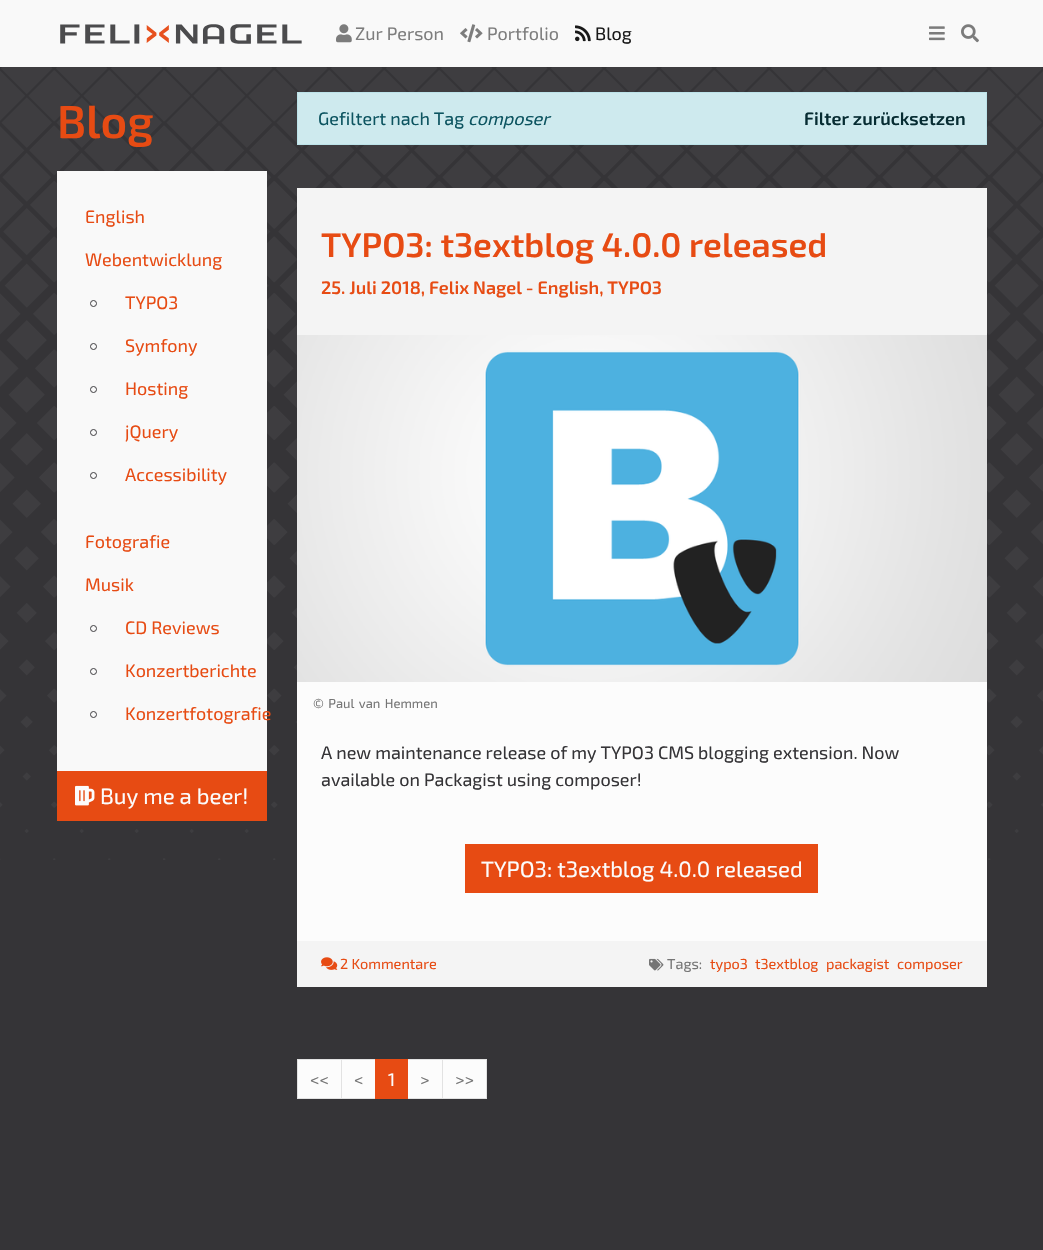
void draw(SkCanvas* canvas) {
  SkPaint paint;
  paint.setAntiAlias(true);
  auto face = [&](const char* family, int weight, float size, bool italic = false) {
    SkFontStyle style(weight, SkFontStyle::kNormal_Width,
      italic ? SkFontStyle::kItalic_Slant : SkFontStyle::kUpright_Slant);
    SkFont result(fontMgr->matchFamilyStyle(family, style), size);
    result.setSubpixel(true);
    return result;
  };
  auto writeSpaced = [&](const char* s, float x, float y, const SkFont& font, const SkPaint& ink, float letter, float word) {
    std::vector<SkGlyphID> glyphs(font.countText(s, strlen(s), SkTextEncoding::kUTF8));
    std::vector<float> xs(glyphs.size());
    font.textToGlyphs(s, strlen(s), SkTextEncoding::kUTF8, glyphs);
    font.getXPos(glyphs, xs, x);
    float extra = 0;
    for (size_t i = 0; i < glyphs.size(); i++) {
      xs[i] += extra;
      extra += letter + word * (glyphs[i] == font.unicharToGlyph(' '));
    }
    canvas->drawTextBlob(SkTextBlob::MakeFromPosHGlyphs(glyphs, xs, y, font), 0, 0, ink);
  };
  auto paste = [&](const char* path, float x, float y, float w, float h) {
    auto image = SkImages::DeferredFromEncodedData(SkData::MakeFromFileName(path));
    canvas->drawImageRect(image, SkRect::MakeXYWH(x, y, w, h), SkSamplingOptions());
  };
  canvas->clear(0xff353437);
  paint.setColor(0xfff9f9f9);
  canvas->drawRect(SkRect::MakeXYWH(0, 0, 1043, 67), paint);
  paste("img/1.png", 60, 24, 242, 20);
  paste("img/2.png", 336, 24, 16, 19);
  paste("img/3.png", 460, 24, 23, 19);
  paste("img/4.png", 575, 25, 16, 17);
  paste("img/5.png", 929, 26, 16, 15);
  paste("img/6.png", 961, 24, 18, 19);
  paste("img/7.png", 0, 67, 1043, 793);
  canvas->drawRect(SkRect::MakeXYWH(57, 171, 210, 600), paint);
  paint.setStroke(true);
  paint.setStrokeWidth(1);
  paint.setColor(0xff3e3d40);
  canvas->drawCircle(93.5f, 303.5f, 3, paint);
  canvas->drawCircle(93.5f, 346.5f, 3, paint);
  canvas->drawCircle(93.5f, 389.5f, 3, paint);
  canvas->drawCircle(93.5f, 432.5f, 3, paint);
  canvas->drawCircle(93.5f, 475.5f, 3, paint);
  canvas->drawCircle(93.5f, 628.5f, 3, paint);
  canvas->drawCircle(93.5f, 671.5f, 3, paint);
  canvas->drawCircle(93.5f, 714.5f, 3, paint);
  paint.setStroke(false);
  paint.setColor(0xffe74b13);
  canvas->drawRect(SkRect::MakeXYWH(57, 771, 210, 50), paint);
  paste("img/8.png", 75, 785, 20, 21);
  paint.setColor(0xffceeaee);
  canvas->drawRect(SkRect::MakeXYWH(297.5f, 92.5f, 689, 52), paint);
  paint.setStroke(true);
  paint.setColor(0xffbce3e9);
  canvas->drawRect(SkRect::MakeXYWH(297.5f, 92.5f, 689, 52), paint);
  paint.setStroke(false);
  paint.setColor(0xfffcfcfc);
  canvas->drawRect(SkRect::MakeXYWH(297, 682, 690, 259), paint);
  paint.setColor(0xfff4f4f4);
  canvas->drawRect(SkRect::MakeXYWH(297, 188, 690, 147), paint);
  paste("img/9.png", 297, 335, 690, 347);
  paint.setColor(0xffe74b13);
  canvas->drawRect(SkRect::MakeXYWH(465, 844, 353, 49), paint);
  paint.setColor(0xfff4f4f4);
  canvas->drawRect(SkRect::MakeXYWH(297, 941, 690, 46), paint);
  paste("img/10.png", 321, 957, 17, 13);
  paste("img/11.png", 649, 958, 15, 13);
  paint.setColor(0xfffcfcfc);
  canvas->drawRect(SkRect::MakeXYWH(297.5f, 1059.5f, 44, 39), paint);
  paint.setStroke(true);
  paint.setColor(0xffe2e2e2);
  canvas->drawRect(SkRect::MakeXYWH(297.5f, 1059.5f, 44, 39), paint);
  paint.setStroke(false);
  paint.setColor(0xfffcfcfc);
  canvas->drawRect(SkRect::MakeXYWH(341.5f, 1059.5f, 34, 39), paint);
  paint.setStroke(true);
  paint.setColor(0xffe2e2e2);
  canvas->drawRect(SkRect::MakeXYWH(341.5f, 1059.5f, 34, 39), paint);
  paint.setStroke(false);
  paint.setColor(0xfffcfcfc);
  canvas->drawRect(SkRect::MakeXYWH(407.5f, 1059.5f, 35, 39), paint);
  paint.setStroke(true);
  paint.setColor(0xffe2e2e2);
  canvas->drawRect(SkRect::MakeXYWH(407.5f, 1059.5f, 35, 39), paint);
  paint.setStroke(false);
  paint.setColor(0xffe74b13);
  canvas->drawRect(SkRect::MakeXYWH(375, 1059, 33, 40), paint);
  paint.setColor(0xfffcfcfc);
  canvas->drawRect(SkRect::MakeXYWH(442.5f, 1059.5f, 44, 39), paint);
  paint.setStroke(true);
  paint.setColor(0xffe2e2e2);
  canvas->drawRect(SkRect::MakeXYWH(442.5f, 1059.5f, 44, 39), paint);
  auto f0 = face("Exo 2", 400, 18);
  paint.setStroke(false);
  paint.setColor(0xff7d7d7d);
  canvas->drawString("Zur Person", 355, 40, f0, paint);
  canvas->drawString("Portfolio", 487, 40, f0, paint);
  paint.setColor(0xff191919);
  canvas->drawString("Blog", 595, 40, f0, paint);
  auto f1 = face("Exo 2", 600, 46);
  paint.setColor(0xffe74b13);
  canvas->drawString("Blog", 57, 138, f1, paint);
  {
    const struct { const char* s; float x, y; } items[] = {
      {"English", 85, 223},
      {"Webentwicklung", 85, 266},
      {"TYPO3", 125, 309},
      {"Symfony", 125, 352},
      {"Hosting", 125, 395},
      {"jQuery", 125, 438},
      {"Accessibility", 125, 481},
      {"Fotografie", 85, 548},
      {"Musik", 85, 591},
      {"CD Reviews", 125, 634},
      {"Konzertberichte", 125, 677},
      {"Konzertfotografie", 125, 720},
    };
    for (auto [s, x, y] : items) {
      canvas->drawString(s, x, y, f0, paint);
    }
  }
  auto f2 = face("Exo 2", 400, 22.25f);
  paint.setColor(0xfffcfcfc);
  canvas->drawString("Buy me a beer!", 100, 804, f2, paint);
  paint.setColor(0xff0c5460);
  canvas->drawString("Gefiltert nach Tag", 318, 125, f0, paint);
  auto f3 = face("Exo 2", 400, 18, true);
  canvas->drawString("composer", 468, 125, f3, paint);
  auto f4 = face("Exo 2", 600, 18);
  paint.setColor(0xff062c32);
  canvas->drawString("Filter zurücksetzen", 804, 125, f4, paint);
  auto f5 = face("Exo 2", 600, 34.1f);
  paint.setColor(0xffe74b13);
  canvas->drawString("TYPO3: t3extblog 4.0.0 released", 321, 257, f5, paint);
  canvas->drawString("25. Juli 2018, Felix Nagel - English, TYPO3", 321, 294, f4, paint);
  auto f6 = face("Exo 2", 400, 13);
  paint.setColor(0xff757575);
  writeSpaced("© Paul van Hemmen", 313, 708, f6, paint, 0, 1.5f);
  paint.setColor(0xff353437);
  canvas->drawString("A new maintenance release of my TYPO3 CMS blogging extension. Now", 321, 759, f0, paint);
  canvas->drawString("available on Packagist using composer!", 321, 786, f0, paint);
  paint.setColor(0xfffcfcfc);
  canvas->drawString("TYPO3: t3extblog 4.0.0 released", 481, 877, f2, paint);
  auto f7 = face("Exo 2", 400, 14.5f);
  paint.setColor(0xffe74b13);
  canvas->drawString("2 Kommentare", 340, 969, f7, paint);
  paint.setColor(0xff757575);
  canvas->drawString("Tags:", 667, 969, f7, paint);
  paint.setColor(0xffe74b13);
  {
    const struct { const char* s; float x, y; } items[] = {
      {"typo3", 710, 969},
      {"t3extblog", 755, 969},
      {"packagist", 826, 969},
      {"composer", 897, 969},
    };
    for (auto [s, x, y] : items) {
      canvas->drawString(s, x, y, f7, paint);
    }
  }
  paint.setColor(0xff757575);
  canvas->drawString("<<", 310, 1086, f0, paint);
  canvas->drawString("<", 354, 1086, f0, paint);
  paint.setColor(0xfffcfcfc);
  canvas->drawString("1", 388, 1086, f0, paint);
  paint.setColor(0xff757575);
  canvas->drawString(">", 420, 1086, f0, paint);
  canvas->drawString(">>", 455, 1086, f0, paint);
}
